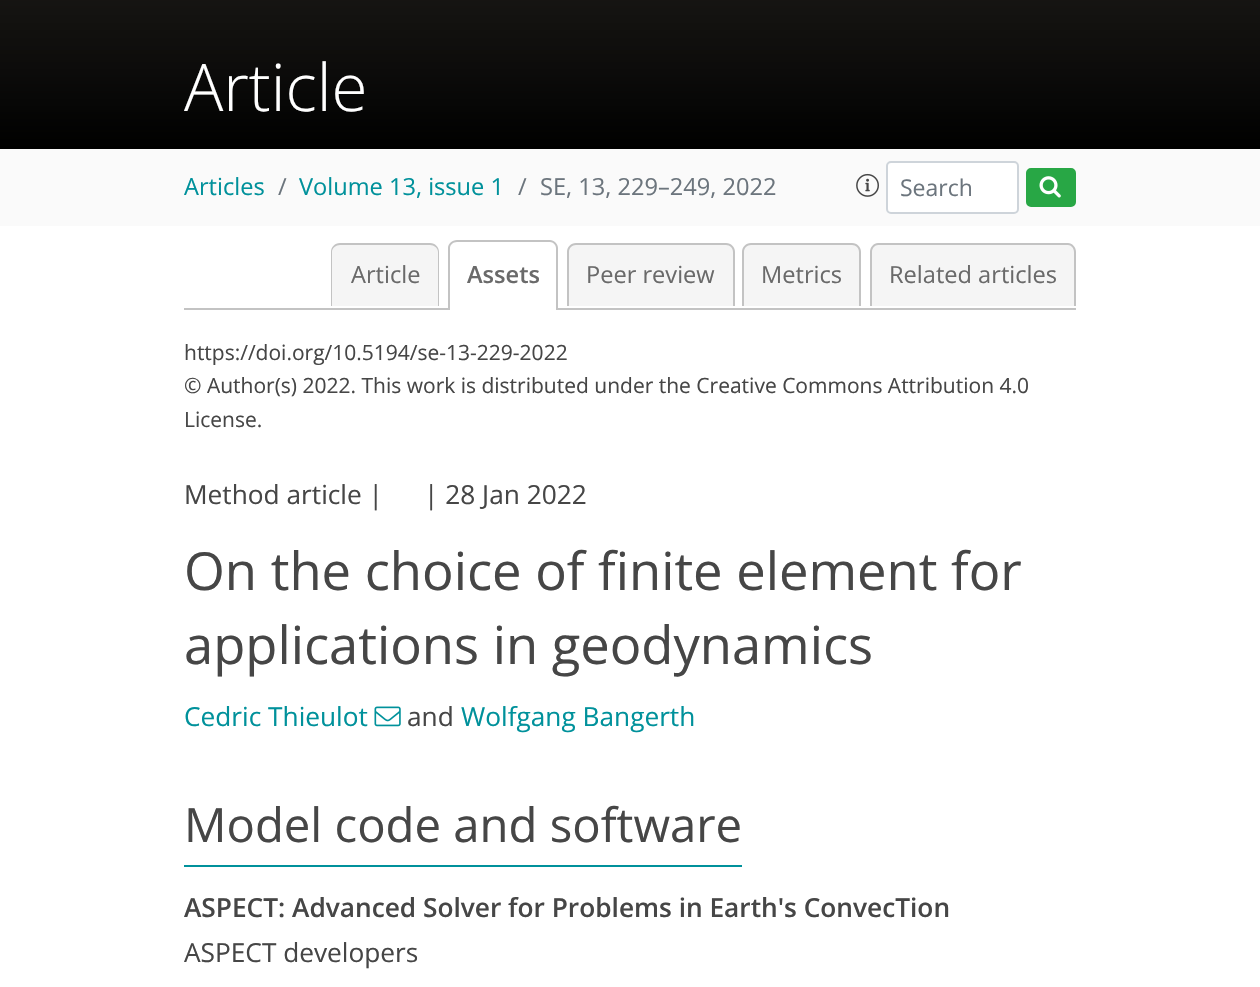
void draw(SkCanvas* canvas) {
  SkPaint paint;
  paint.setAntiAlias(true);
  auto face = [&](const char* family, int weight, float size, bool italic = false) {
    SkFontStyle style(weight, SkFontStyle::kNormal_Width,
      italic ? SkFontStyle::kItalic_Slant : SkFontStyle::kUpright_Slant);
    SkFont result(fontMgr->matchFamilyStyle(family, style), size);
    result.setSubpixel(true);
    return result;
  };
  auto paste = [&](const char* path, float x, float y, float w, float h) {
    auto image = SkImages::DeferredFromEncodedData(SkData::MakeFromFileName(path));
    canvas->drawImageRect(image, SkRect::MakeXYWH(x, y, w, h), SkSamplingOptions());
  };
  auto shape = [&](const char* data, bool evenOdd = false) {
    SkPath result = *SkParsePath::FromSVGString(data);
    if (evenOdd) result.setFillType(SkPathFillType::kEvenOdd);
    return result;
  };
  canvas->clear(0xffffffff);
  {
    const SkColor colors[] = {0xff000000, 0xff070706, 0xff0d0c0b, 0xff11100e, 0xff141311, 0xff171513, 0xff191714, 0xff1a1815, 0xff1b1916, 0xff1b1917, 0xff1c1a17, 0xff1c1a17};
    const float stops[] = {0, 0.19f, 0.34f, 0.47f, 0.56f, 0.65f, 0.73f, 0.8f, 0.86f, 0.91f, 0.95f, 1};
    const SkPoint ends[] = {{630, 149}, {630, -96}};
    paint.setShader(SkGradientShader::MakeLinear(ends, colors, stops, 12, SkTileMode::kClamp));
    paint.setAlpha(255);
  }
  canvas->drawRect(SkRect::MakeXYWH(0, 0, 1260, 149), paint);
  paint.setShader(nullptr);
  paint.setColor(0xfffafafa);
  canvas->drawRect(SkRect::MakeXYWH(0, 149, 1260, 77), paint);
  paste("img/1.png", 856, 173, 23, 24);
  paint.setColor(0xffffffff);
  canvas->drawRoundRect(SkRect::MakeXYWH(887, 162, 131, 51), 4, 4, paint);
  paint.setStroke(true);
  paint.setStrokeWidth(2);
  paint.setColor(0xffced4da);
  canvas->drawRoundRect(SkRect::MakeXYWH(887, 162, 131, 51), 4, 4, paint);
  paint.setStroke(false);
  paint.setColor(0xff28a745);
  canvas->drawRoundRect(SkRect::MakeXYWH(1027, 169, 48, 37), 4, 4, paint);
  paint.setStroke(true);
  canvas->drawRoundRect(SkRect::MakeXYWH(1027, 169, 48, 37), 4, 4, paint);
  paste("img/2.png", 1039, 176, 22, 22);
  paint.setStroke(false);
  paint.setColor(0xffc3c3c3);
  canvas->drawRect(SkRect::MakeXYWH(184, 308, 892, 2), paint);
  paint.setColor(0xfff5f5f5);
  canvas->drawPath(shape("M340 243H430C435 243 439 247 439 252V306H331V252C331 247 335 243 340 243Z"), paint);
  paint.setColor(0xffc3c3c3);
  canvas->drawPath(shape("M340 243H430C435 243 439 247 439 252V306H331V252C331 247 335 243 340 243ZM340 245H430C434 245 438 248 438 252V306H332V252C332 248 336 245 340 245Z", true), paint);
  paint.setColor(0xffffffff);
  canvas->drawPath(shape("M457 240H549C554 240 558 244 558 249V310H448V249C448 244 452 240 457 240Z"), paint);
  paint.setColor(0xffc3c3c3);
  canvas->drawPath(shape("M457 240H550C554 240 558 244 558 248V310H448V248C448 244 452 240 457 240ZM457 242H550C553 242 556 245 556 248V310H450V248C450 245 453 242 457 242Z", true), paint);
  paint.setColor(0xfff5f5f5);
  canvas->drawPath(shape("M576 243H726C731 243 735 247 735 252V306H567V252C567 247 571 243 576 243Z"), paint);
  paint.setColor(0xffc3c3c3);
  canvas->drawPath(shape("M576 243H726C731 243 735 247 735 252V306H567V252C567 247 571 243 576 243ZM576 245H726C730 245 733 248 733 252V306H569V252C569 248 572 245 576 245Z", true), paint);
  paint.setColor(0xfff5f5f5);
  canvas->drawPath(shape("M751 243H852C857 243 861 247 861 252V306H742V252C742 247 746 243 751 243Z"), paint);
  paint.setColor(0xffc3c3c3);
  canvas->drawPath(shape("M751 243H852C857 243 861 247 861 252V306H742V252C742 247 746 243 751 243ZM751 245H852C856 245 859 248 859 252V306H744V252C744 248 747 245 751 245Z", true), paint);
  paint.setColor(0xfff5f5f5);
  canvas->drawPath(shape("M879 243H1067C1072 243 1076 247 1076 252V306H870V252C870 247 874 243 879 243Z"), paint);
  paint.setColor(0xffc3c3c3);
  canvas->drawPath(shape("M878 243H1068C1072 243 1076 247 1076 252V306H870V252C870 247 874 243 878 243ZM878 245H1068C1071 245 1074 248 1074 252V306H872V252C872 248 875 245 878 245Z", true), paint);
  paste("img/3.png", 374, 706, 27, 21);
  paint.setColor(0xff00919b);
  canvas->drawRect(SkRect::MakeXYWH(184, 865, 558, 2), paint);
  auto f0 = face("Open Sans", 300, 65.5f);
  paint.setColor(0xffffffff);
  canvas->drawString("Article", 184, 111, f0, paint);
  auto f1 = face("Open Sans", 400, 23.6f);
  paint.setColor(0xff00919b);
  canvas->drawString("Articles", 184, 195, f1, paint);
  paint.setColor(0xff6c757d);
  canvas->drawString("/", 278, 195, f1, paint);
  paint.setColor(0xff00919b);
  canvas->drawString("Volume 13, issue 1", 299, 195, f1, paint);
  paint.setColor(0xff6c757d);
  canvas->drawString("/", 518, 195, f1, paint);
  canvas->drawString("SE, 13, 229–249, 2022", 540, 195, f1, paint);
  auto f2 = face("Open Sans", 400, 23);
  canvas->drawString("Search", 900, 196, f2, paint);
  paint.setColor(0xff6a6a6a);
  canvas->drawString("Article", 351, 283, f1, paint);
  auto f3 = face("Open Sans", 600, 23.6f);
  canvas->drawString("Assets", 467, 283, f3, paint);
  {
    const struct { const char* s; float x, y; } items[] = {
      {"Peer review", 586, 283},
      {"Metrics", 761, 283},
      {"Related articles", 889, 283},
    };
    for (auto [s, x, y] : items) {
      canvas->drawString(s, x, y, f1, paint);
    }
  }
  auto f4 = face("Open Sans", 400, 21);
  paint.setColor(0xff464646);
  {
    const struct { const char* s; float x, y; } items[] = {
      {"https://doi.org/10.5194/se-13-229-2022", 184, 360},
      {"© Author(s) 2022. This work is distributed under the Creative Commons Attribution 4.0", 184, 393},
      {"License.", 184, 427},
    };
    for (auto [s, x, y] : items) {
      canvas->drawString(s, x, y, f4, paint);
    }
  }
  auto f5 = face("Open Sans", 400, 26.25f);
  canvas->drawString("Method article |", 184, 504, f5, paint);
  canvas->drawString("| 28 Jan 2022", 424, 504, f5, paint);
  auto f6 = face("Open Sans", 400, 52.5f);
  canvas->drawString("On the choice of finite element for", 184, 590, f6, paint);
  canvas->drawString("applications in geodynamics", 184, 664, f6, paint);
  paint.setColor(0xff00919b);
  canvas->drawString("Cedric Thieulot", 184, 726, f5, paint);
  paint.setColor(0xff464646);
  canvas->drawString("and", 407, 726, f5, paint);
  paint.setColor(0xff00919b);
  canvas->drawString("Wolfgang Bangerth", 461, 726, f5, paint);
  auto f7 = face("Open Sans", 400, 47.25f);
  paint.setColor(0xff464646);
  canvas->drawString("Model code and software", 184, 842, f7, paint);
  auto f8 = face("Open Sans", 600, 26.25f);
  canvas->drawString("ASPECT: Advanced Solver for Problems in Earth's ConvecTion", 184, 917, f8, paint);
  canvas->drawString("ASPECT developers", 184, 962, f5, paint);
}
